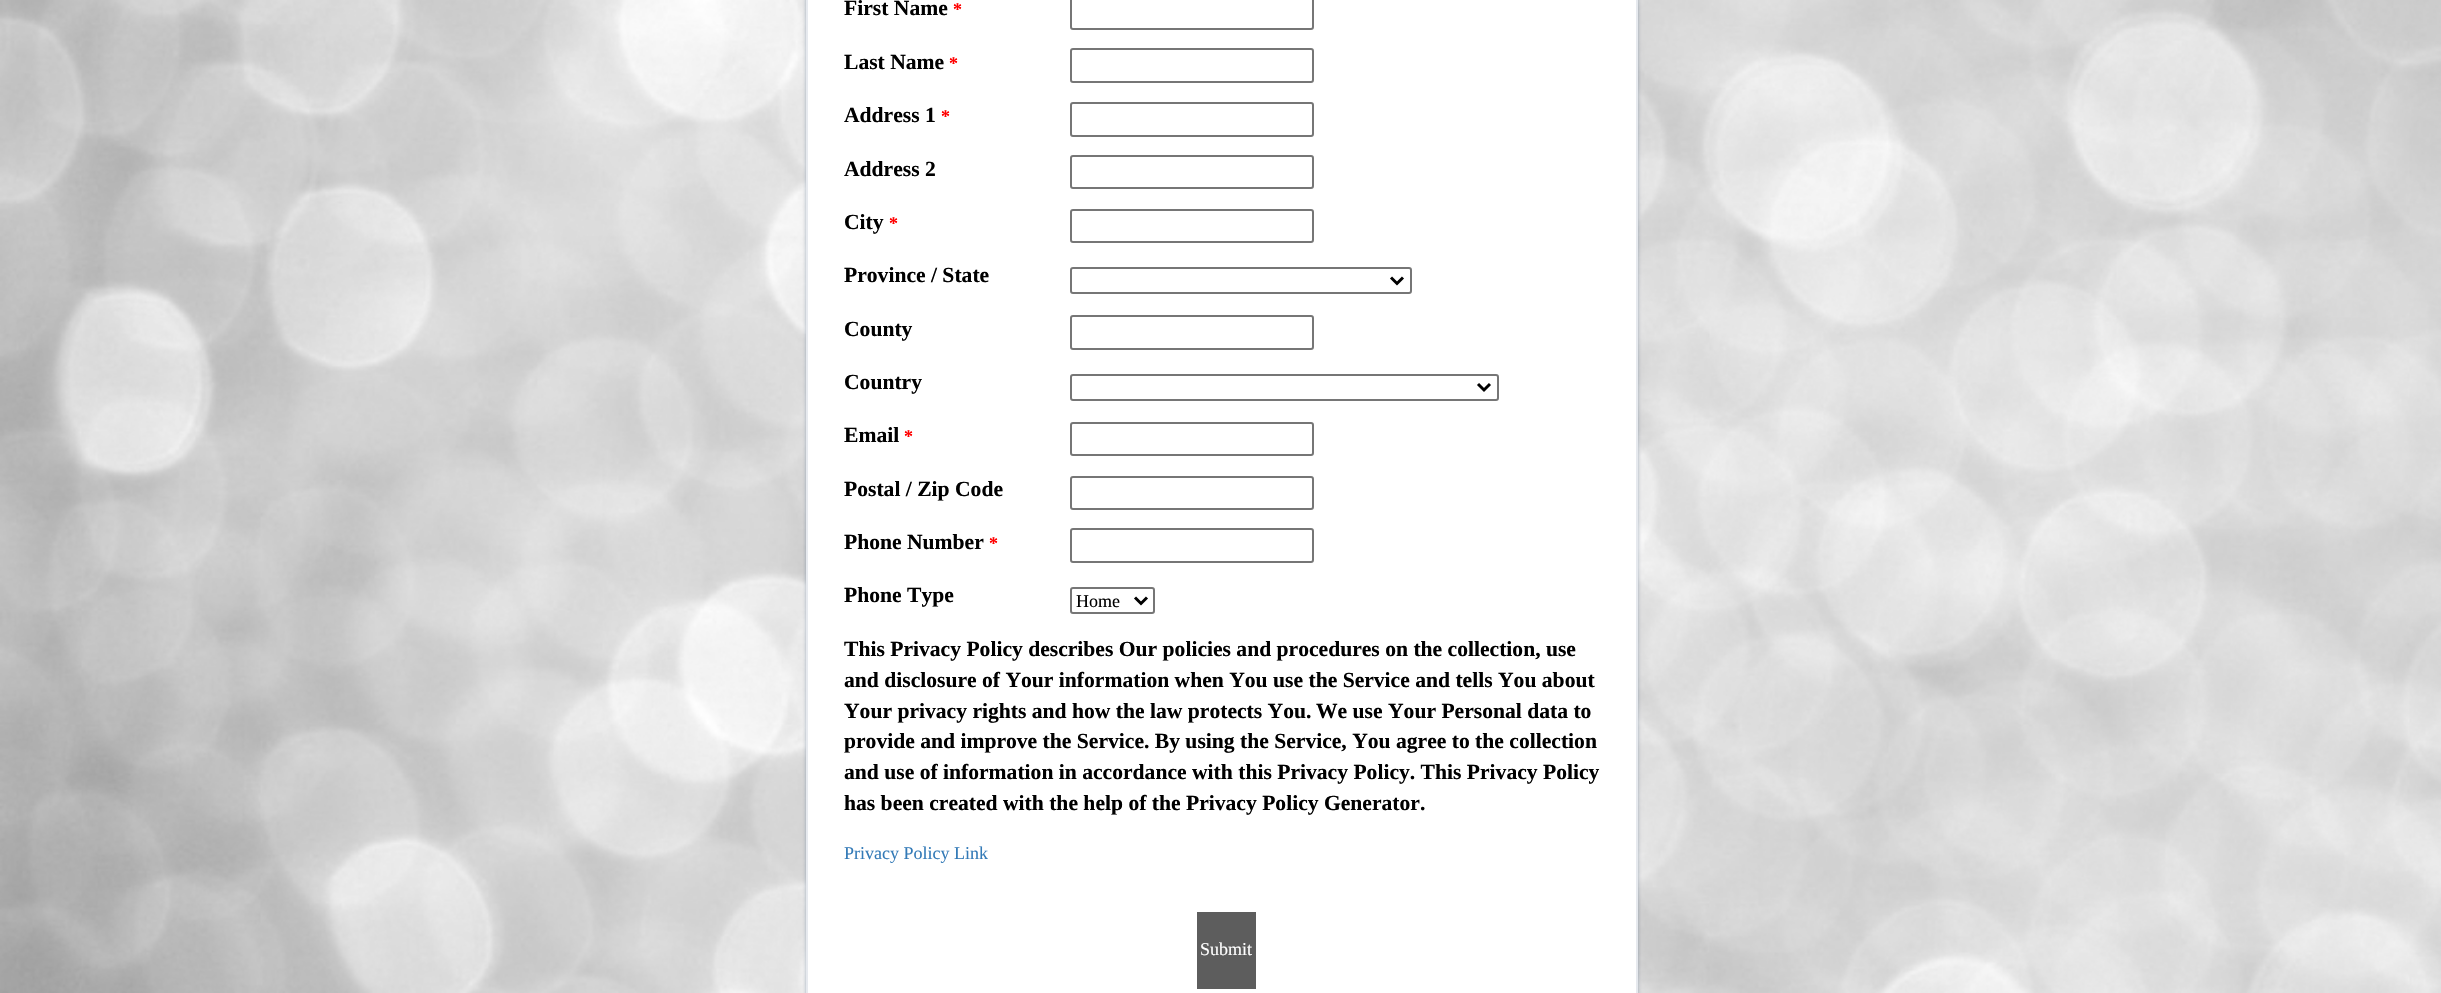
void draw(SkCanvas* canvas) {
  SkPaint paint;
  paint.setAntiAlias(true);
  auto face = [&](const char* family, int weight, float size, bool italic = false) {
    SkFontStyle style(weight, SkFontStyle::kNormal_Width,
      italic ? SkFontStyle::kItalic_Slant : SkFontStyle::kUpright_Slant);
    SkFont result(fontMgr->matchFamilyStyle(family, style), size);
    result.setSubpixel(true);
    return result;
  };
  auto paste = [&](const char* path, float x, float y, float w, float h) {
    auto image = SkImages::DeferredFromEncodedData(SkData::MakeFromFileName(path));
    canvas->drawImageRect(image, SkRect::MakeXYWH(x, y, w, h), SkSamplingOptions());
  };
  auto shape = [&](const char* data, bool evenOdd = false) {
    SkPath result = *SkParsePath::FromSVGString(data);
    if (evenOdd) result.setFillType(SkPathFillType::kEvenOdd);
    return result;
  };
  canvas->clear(0xffffffff);
  paste("img/1.png", 0, 0, 2441, 993);
  paint.setColor(0x332f4975);
  paint.setMaskFilter(SkMaskFilter::MakeBlur(kNormal_SkBlurStyle, 2));
  canvas->drawRoundRect(SkRect::MakeXYWH(806, -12, 832, 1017), 6, 6, paint);
  paint.setMaskFilter(nullptr);
  paint.setColor(0x1f2f4975);
  paint.setMaskFilter(SkMaskFilter::MakeBlur(kNormal_SkBlurStyle, 1.5f));
  canvas->drawRoundRect(SkRect::MakeXYWH(806, -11, 832, 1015), 6, 6, paint);
  paint.setMaskFilter(nullptr);
  paint.setColor(0x242f4975);
  paint.setMaskFilter(SkMaskFilter::MakeBlur(kNormal_SkBlurStyle, 1.5f));
  canvas->drawRoundRect(SkRect::MakeXYWH(806, -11, 832, 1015), 6, 6, paint);
  paint.setMaskFilter(nullptr);
  paint.setColor(0xffffffff);
  canvas->drawRect(SkRect::MakeXYWH(807, -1, 830, 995), paint);
  paint.setStroke(true);
  paint.setStrokeWidth(2);
  paint.setColor(0xffe6e9ee);
  canvas->drawRect(SkRect::MakeXYWH(807, -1, 830, 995), paint);
  paint.setColor(0xff767676);
  canvas->drawRoundRect(SkRect::MakeXYWH(1071, -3, 242, 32), 2, 2, paint);
  canvas->drawRoundRect(SkRect::MakeXYWH(1071, 49, 242, 33), 2, 2, paint);
  canvas->drawRoundRect(SkRect::MakeXYWH(1071, 103, 242, 33), 2, 2, paint);
  canvas->drawRoundRect(SkRect::MakeXYWH(1071, 156, 242, 32), 2, 2, paint);
  canvas->drawRoundRect(SkRect::MakeXYWH(1071, 210, 242, 32), 2, 2, paint);
  canvas->drawRoundRect(SkRect::MakeXYWH(1071, 268, 340, 25), 2, 2, paint);
  paint.setStrokeWidth(3);
  paint.setColor(0xff000000);
  canvas->drawPath(shape("M1391 277.5L1397 283.5L1403 277.5"), paint);
  paint.setStrokeWidth(2);
  paint.setColor(0xff767676);
  canvas->drawRoundRect(SkRect::MakeXYWH(1071, 316, 242, 33), 2, 2, paint);
  canvas->drawRoundRect(SkRect::MakeXYWH(1071, 375, 427, 25), 2, 2, paint);
  paint.setStrokeWidth(3);
  paint.setColor(0xff000000);
  canvas->drawPath(shape("M1478 384L1484 390L1490 384"), paint);
  paint.setStrokeWidth(2);
  paint.setColor(0xff767676);
  canvas->drawRoundRect(SkRect::MakeXYWH(1071, 423, 242, 32), 2, 2, paint);
  canvas->drawRoundRect(SkRect::MakeXYWH(1071, 477, 242, 32), 2, 2, paint);
  canvas->drawRoundRect(SkRect::MakeXYWH(1071, 529, 242, 33), 2, 2, paint);
  canvas->drawRoundRect(SkRect::MakeXYWH(1071, 588, 83, 25), 2, 2, paint);
  paint.setStrokeWidth(3);
  paint.setColor(0xff000000);
  canvas->drawPath(shape("M1135 597.5L1141 603.5L1147 597.5"), paint);
  paint.setStroke(false);
  paint.setColor(0xff5d5d5d);
  canvas->drawRect(SkRect::MakeXYWH(1197, 912, 59, 77), paint);
  auto f0 = face("Liberation Serif", 700, 21.6f);
  paint.setColor(0xff000000);
  canvas->drawString("First Name", 844, 15, f0, paint);
  auto f1 = face("Liberation Serif", 700, 18);
  paint.setColor(0xffff0000);
  canvas->drawString("*", 953, 15, f1, paint);
  paint.setColor(0xff000000);
  canvas->drawString("Last Name", 844, 69, f0, paint);
  paint.setColor(0xffff0000);
  canvas->drawString("*", 949, 69, f1, paint);
  paint.setColor(0xff000000);
  canvas->drawString("Address 1", 844, 122, f0, paint);
  paint.setColor(0xffff0000);
  canvas->drawString("*", 941, 122, f1, paint);
  paint.setColor(0xff000000);
  canvas->drawString("Address 2", 844, 176, f0, paint);
  canvas->drawString("City", 844, 229, f0, paint);
  paint.setColor(0xffff0000);
  canvas->drawString("*", 889, 229, f1, paint);
  paint.setColor(0xff000000);
  {
    const struct { const char* s; float x, y; } items[] = {
      {"Province / State", 844, 282},
      {"County", 844, 336},
      {"Country", 844, 389},
      {"Email", 844, 442},
    };
    for (auto [s, x, y] : items) {
      canvas->drawString(s, x, y, f0, paint);
    }
  }
  paint.setColor(0xffff0000);
  canvas->drawString("*", 904, 442, f1, paint);
  paint.setColor(0xff000000);
  canvas->drawString("Postal / Zip Code", 844, 496, f0, paint);
  canvas->drawString("Phone Number", 844, 549, f0, paint);
  paint.setColor(0xffff0000);
  canvas->drawString("*", 989, 549, f1, paint);
  paint.setColor(0xff000000);
  canvas->drawString("Phone Type", 844, 602, f0, paint);
  auto f2 = face("Liberation Serif", 400, 18);
  canvas->drawString("Home", 1076, 607, f2, paint);
  {
    const struct { const char* s; float x, y; } items[] = {
      {"This Privacy Policy describes Our policies and procedures on the collection, use", 844, 656},
      {"and disclosure of Your information when You use the Service and tells You about", 844, 687},
      {"Your privacy rights and how the law protects You.", 844, 718},
      {"We use Your Personal data to", 1316, 718},
      {"provide and improve the Service. By using the Service, You agree to the collection", 844, 748},
      {"and use of information in accordance with this Privacy Policy. This Privacy Policy", 844, 779},
      {"has been created with the help of the Privacy Policy Generator.", 844, 810},
    };
    for (auto [s, x, y] : items) {
      canvas->drawString(s, x, y, f0, paint);
    }
  }
  paint.setColor(0xff337ab7);
  canvas->drawString("Privacy Policy Link", 844, 859, f2, paint);
  paint.setColor(0xffffffff);
  canvas->drawString("Submit", 1200, 955, f2, paint);
}
